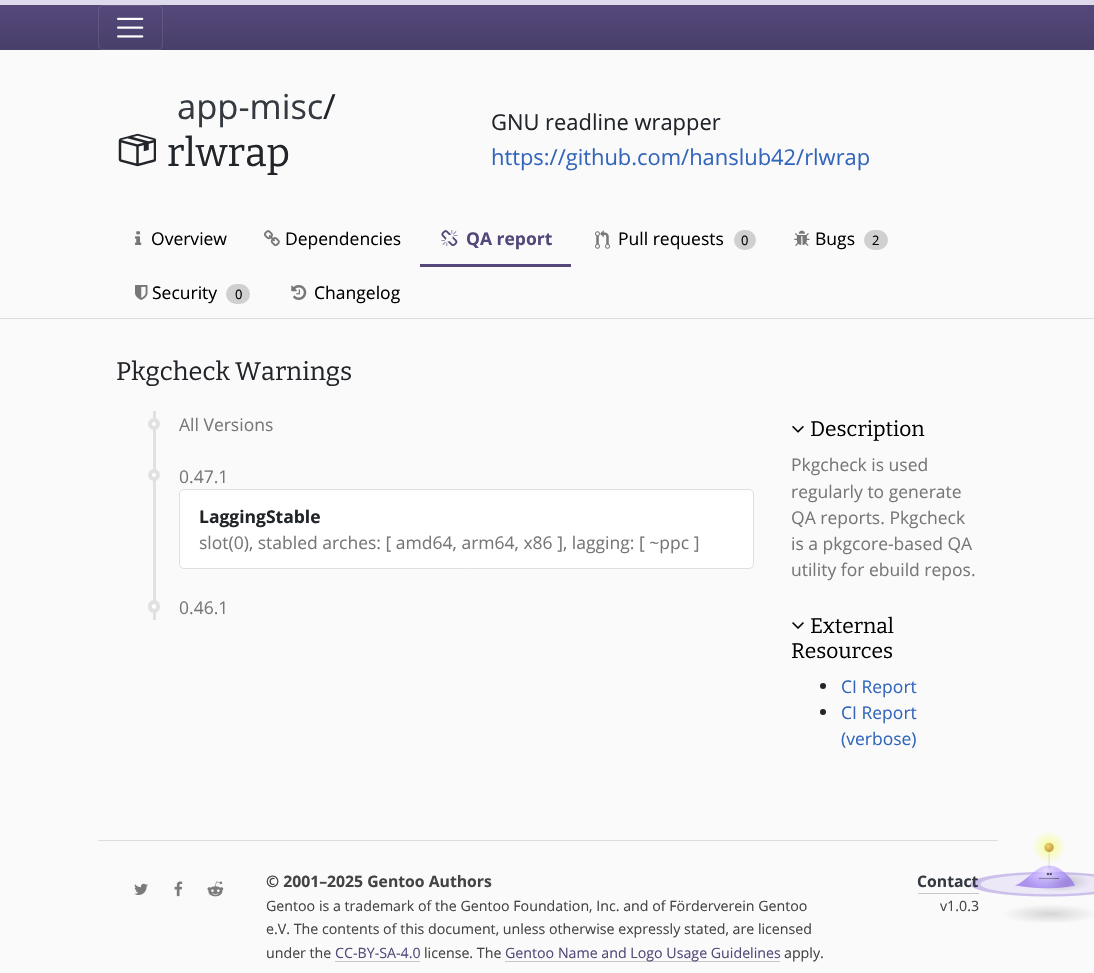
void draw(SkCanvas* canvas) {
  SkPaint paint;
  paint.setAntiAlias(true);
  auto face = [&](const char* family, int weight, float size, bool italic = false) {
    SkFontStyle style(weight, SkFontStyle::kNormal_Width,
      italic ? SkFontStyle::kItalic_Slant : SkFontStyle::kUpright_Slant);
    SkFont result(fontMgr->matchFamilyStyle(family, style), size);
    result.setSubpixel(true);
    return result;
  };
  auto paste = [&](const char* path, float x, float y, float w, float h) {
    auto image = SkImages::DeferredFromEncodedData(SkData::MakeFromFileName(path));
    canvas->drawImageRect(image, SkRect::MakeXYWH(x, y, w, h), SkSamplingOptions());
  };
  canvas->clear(0xfffafafa);
  {
    const SkColor colors[] = {0xffbeb8db, 0xffdddaec};
    const float stops[] = {0, 0.2f};
    const SkPoint ends[] = {{548, -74}, {548, 5}};
    paint.setShader(SkGradientShader::MakeLinear(ends, colors, stops, 2, SkTileMode::kClamp));
    paint.setAlpha(255);
  }
  canvas->drawRect(SkRect::MakeXYWH(0, 0, 1094, 5), paint);
  {
    const SkColor colors[] = {0xff54487a, 0xff493f6a};
    const float stops[] = {0, 1};
    const SkPoint ends[] = {{548, 5}, {548, 50}};
    paint.setShader(SkGradientShader::MakeLinear(ends, colors, stops, 2, SkTileMode::kClamp));
    paint.setAlpha(255);
  }
  canvas->drawRect(SkRect::MakeXYWH(0, 5, 1094, 45), paint);
  paint.setStroke(true);
  paint.setStrokeWidth(1);
  paint.setShader(nullptr);
  paint.setColor(0x1affffff);
  canvas->drawRoundRect(SkRect::MakeXYWH(98.5f, 5.5f, 64, 44), 4.5f, 4.5f, paint);
  paste("img/1.png", 117, 17, 27, 21);
  paste("img/2.png", 118, 133, 38, 34);
  paste("img/3.png", 135, 231, 7, 14);
  paste("img/4.png", 263, 230, 17, 17);
  paint.setStroke(false);
  paint.setColor(0xff54487a);
  canvas->drawRect(SkRect::MakeXYWH(420, 264, 151, 3), paint);
  paste("img/5.png", 441, 230, 17, 17);
  paste("img/6.png", 595, 230, 15, 19);
  paint.setColor(0xffd0d0d0);
  canvas->drawRoundRect(SkRect::MakeXYWH(734, 230, 22, 20), 10, 10, paint);
  paste("img/7.png", 794, 230, 16, 16);
  canvas->drawRoundRect(SkRect::MakeXYWH(864, 230, 24, 20), 10, 10, paint);
  paste("img/8.png", 135, 285, 13, 15);
  canvas->drawRoundRect(SkRect::MakeXYWH(226, 284, 24, 20), 10, 10, paint);
  paste("img/9.png", 291, 285, 16, 15);
  paint.setColor(0xffdddddd);
  canvas->drawRect(SkRect::MakeXYWH(0, 318, 1094, 1), paint);
  paint.setColor(0xffe1e1e1);
  canvas->drawRect(SkRect::MakeXYWH(153, 411, 3, 209), paint);
  paint.setColor(0xffffffff);
  canvas->drawCircle(154, 424, 4, paint);
  paint.setStroke(true);
  paint.setStrokeWidth(4);
  paint.setColor(0xffe1e1e1);
  canvas->drawCircle(154, 424, 4, paint);
  paint.setStroke(false);
  paint.setColor(0xffffffff);
  canvas->drawCircle(154, 475, 4, paint);
  paint.setStroke(true);
  paint.setColor(0xffe1e1e1);
  canvas->drawCircle(154, 475, 4, paint);
  paint.setStroke(false);
  paint.setColor(0xffffffff);
  canvas->drawRoundRect(SkRect::MakeXYWH(179.5f, 489.5f, 574, 79), 4.5f, 4.5f, paint);
  paint.setStroke(true);
  paint.setStrokeWidth(1);
  paint.setColor(0xffdfdfdf);
  canvas->drawRoundRect(SkRect::MakeXYWH(179.5f, 489.5f, 574, 79), 4.5f, 4.5f, paint);
  paint.setStroke(false);
  paint.setColor(0xffffffff);
  canvas->drawRoundRect(SkRect::MakeXYWH(150, 602, 8, 9), 4, 4, paint);
  paint.setStroke(true);
  paint.setStrokeWidth(4);
  paint.setColor(0xffe1e1e1);
  canvas->drawRoundRect(SkRect::MakeXYWH(150, 602, 8, 9), 4, 4, paint);
  paste("img/10.png", 792, 426, 12, 7);
  paste("img/11.png", 792, 622, 12, 7);
  paint.setStroke(false);
  paint.setColor(0xff212529);
  canvas->drawCircle(823, 686, 3, paint);
  canvas->drawCircle(823, 712, 3, paint);
  paste("img/12.png", 970, 832, 124, 91);
  paint.setColor(0xffdddddd);
  canvas->drawRect(SkRect::MakeXYWH(98, 840, 900, 1), paint);
  paste("img/13.png", 134, 883, 14, 12);
  paste("img/14.png", 174, 881, 9, 16);
  paste("img/15.png", 207, 881, 17, 16);
  {
    const struct { float x, y, w, h; SkColor color; } items[] = {
      {335, 961, 85, 1, 0xffc8c8c8},
      {505, 961, 275, 1, 0xffc8c8c8},
      {918, 893, 61, 1, 0xffc8c8c8},
    };
    for (auto [x, y, w, h, color] : items) {
      paint.setColor(color);
      canvas->drawRect(SkRect::MakeXYWH(x, y, w, h), paint);
    }
  }
  auto f0 = face("Open Sans", 400, 34.5f);
  paint.setColor(0xff343a40);
  canvas->drawString("app-misc", 177, 119, f0, paint);
  paint.setColor(0xff212529);
  canvas->drawString("/", 323, 119, f0, paint);
  auto f1 = face("Bitter", 400, 39.5f);
  canvas->drawString("rlwrap", 167, 166, f1, paint);
  auto f2 = face("Open Sans", 400, 21.9f);
  canvas->drawString("GNU readline wrapper", 491, 130, f2, paint);
  paint.setColor(0xff3366bb);
  canvas->drawString("https://github.com/hanslub42/rlwrap", 491, 165, f2, paint);
  auto f3 = face("Open Sans", 400, 17.5f);
  paint.setColor(0xff000000);
  canvas->drawString("Overview", 151, 245, f3, paint);
  canvas->drawString("Dependencies", 285, 245, f3, paint);
  auto f4 = face("Open Sans", 700, 17.5f);
  paint.setColor(0xff54487a);
  canvas->drawString("QA report", 466, 245, f4, paint);
  paint.setColor(0xff000000);
  canvas->drawString("Pull requests", 618, 245, f3, paint);
  auto f5 = face("Open Sans", 400, 13);
  canvas->drawString("0", 741, 245, f5, paint);
  canvas->drawString("Bugs", 815, 245, f3, paint);
  canvas->drawString("2", 872, 245, f5, paint);
  canvas->drawString("Security", 152, 299, f3, paint);
  canvas->drawString("0", 235, 299, f5, paint);
  canvas->drawString("Changelog", 314, 299, f3, paint);
  auto f6 = face("Bitter", 400, 25.4f);
  paint.setColor(0xff212529);
  canvas->drawString("Pkgcheck Warnings", 116, 380, f6, paint);
  paint.setColor(0xff777777);
  canvas->drawString("All Versions", 179, 431, f3, paint);
  canvas->drawString("0.47.1", 179, 483, f3, paint);
  paint.setColor(0xff212529);
  canvas->drawString("LaggingStable", 199, 523, f4, paint);
  paint.setColor(0xff777777);
  canvas->drawString("slot(0), stabled arches: [ amd64, arm64, x86 ], lagging: [ ~ppc ]", 199, 549, f3, paint);
  canvas->drawString("0.46.1", 179, 614, f3, paint);
  auto f7 = face("Bitter", 400, 21);
  paint.setColor(0xff000000);
  canvas->drawString("Description", 810, 436, f7, paint);
  paint.setColor(0xff777777);
  {
    const struct { const char* s; float x, y; } items[] = {
      {"Pkgcheck is used", 791, 471},
      {"regularly to generate", 791, 498},
      {"QA reports. Pkgcheck", 791, 524},
      {"is a pkgcore-based QA", 791, 550},
      {"utility for ebuild repos.", 791, 576},
    };
    for (auto [s, x, y] : items) {
      canvas->drawString(s, x, y, f3, paint);
    }
  }
  paint.setColor(0xff000000);
  canvas->drawString("External", 810, 633, f7, paint);
  canvas->drawString("Resources", 791, 658, f7, paint);
  paint.setColor(0xff3366bb);
  {
    const struct { const char* s; float x, y; } items[] = {
      {"CI Report", 841, 693},
      {"CI Report", 841, 719},
      {"(verbose)", 841, 745},
    };
    for (auto [s, x, y] : items) {
      canvas->drawString(s, x, y, f3, paint);
    }
  }
  auto f8 = face("Open Sans", 700, 15.75f);
  paint.setColor(0xff444444);
  canvas->drawString("© 2001–2025 Gentoo Authors", 266, 887, f8, paint);
  auto f9 = face("Open Sans", 400, 14.2f);
  {
    const struct { const char* s; float x, y; } items[] = {
      {"Gentoo is a trademark of the Gentoo Foundation, Inc. and of Förderverein Gentoo", 266, 911},
      {"e.V. The contents of this document, unless otherwise expressly stated, are licensed", 266, 934},
      {"under the", 266, 958},
    };
    for (auto [s, x, y] : items) {
      canvas->drawString(s, x, y, f9, paint);
    }
  }
  paint.setColor(0xff54487a);
  canvas->drawString("CC-BY-SA-4.0", 335, 958, f9, paint);
  paint.setColor(0xff444444);
  canvas->drawString("license. The", 424, 958, f9, paint);
  paint.setColor(0xff54487a);
  canvas->drawString("Gentoo Name and Logo Usage Guidelines", 505, 958, f9, paint);
  paint.setColor(0xff444444);
  canvas->drawString("apply.", 784, 958, f9, paint);
  paint.setColor(0xff343a40);
  canvas->drawString("Contact", 917, 887, f8, paint);
  paint.setColor(0xff444444);
  canvas->drawString("v1.0.3", 940, 911, f9, paint);
}
